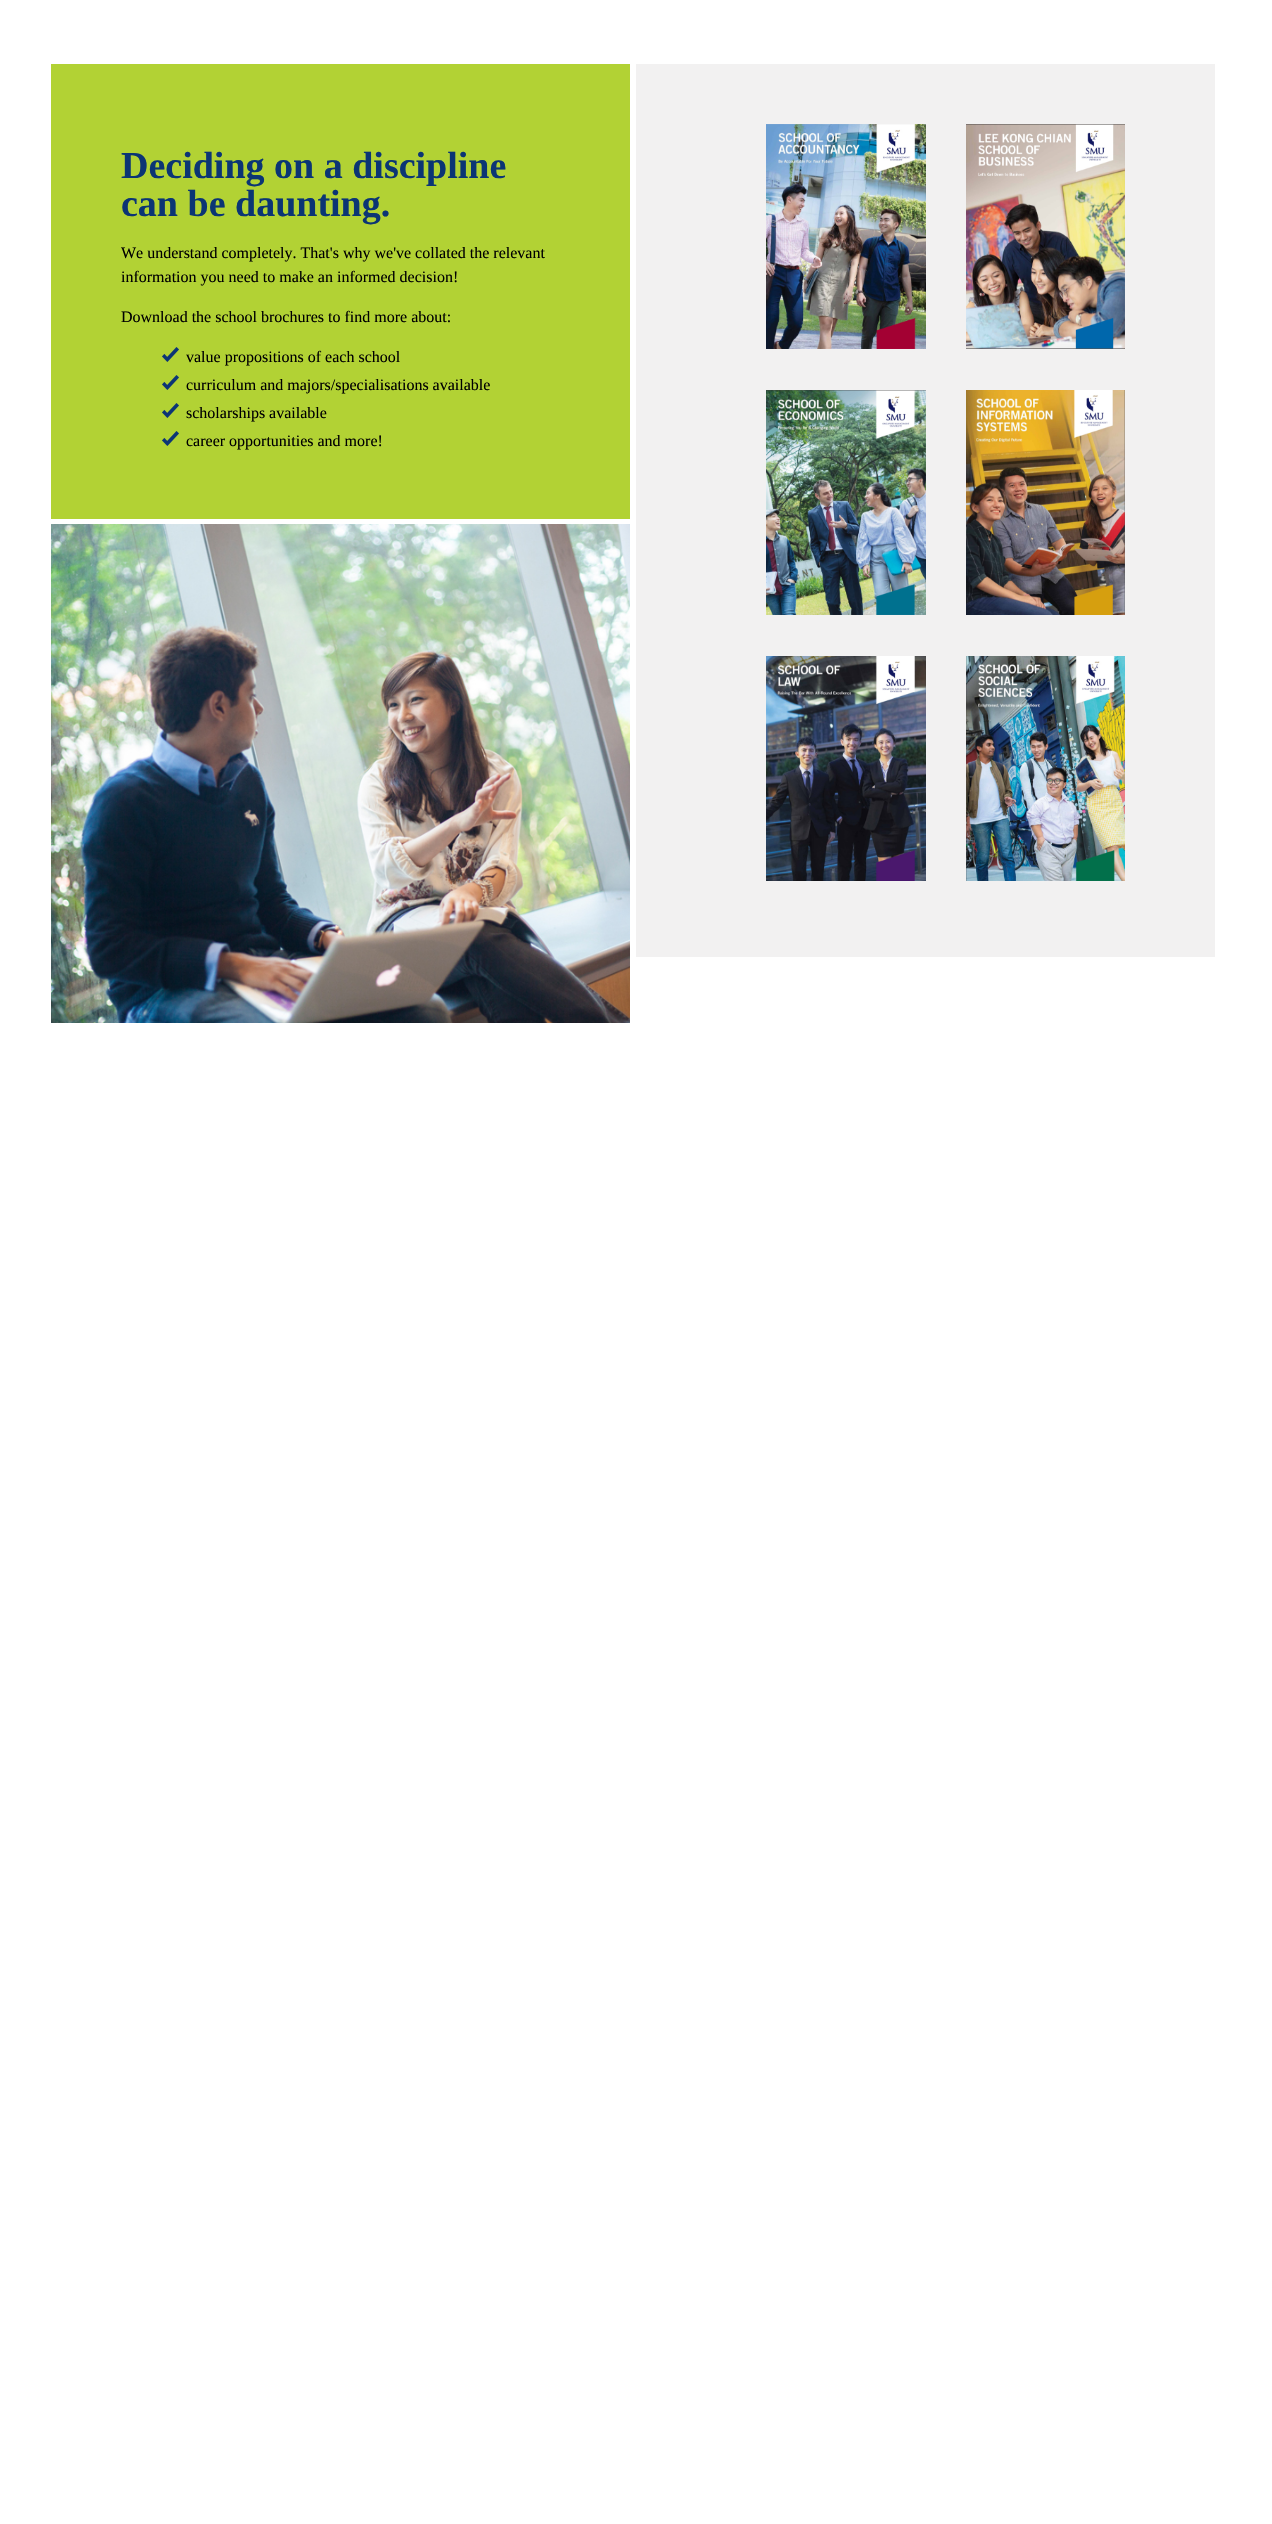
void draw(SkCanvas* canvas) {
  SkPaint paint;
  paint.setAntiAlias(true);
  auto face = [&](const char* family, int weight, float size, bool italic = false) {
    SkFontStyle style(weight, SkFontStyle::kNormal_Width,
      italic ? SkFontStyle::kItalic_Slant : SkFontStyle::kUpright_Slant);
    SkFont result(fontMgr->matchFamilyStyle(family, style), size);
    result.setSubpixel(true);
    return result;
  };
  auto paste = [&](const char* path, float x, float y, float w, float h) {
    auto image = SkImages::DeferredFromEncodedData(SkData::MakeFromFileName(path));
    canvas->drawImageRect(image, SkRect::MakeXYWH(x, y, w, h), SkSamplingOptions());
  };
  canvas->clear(0xffffffff);
  paint.setColor(0xffb2d234);
  canvas->drawRect(SkRect::MakeXYWH(51, 64, 579, 455), paint);
  paste("img/1.png", 162, 347, 17, 15);
  paste("img/1.png", 162, 375, 17, 15);
  paste("img/1.png", 162, 403, 17, 15);
  paste("img/1.png", 162, 431, 17, 15);
  paste("img/2.png", 51, 524, 579, 499);
  paint.setColor(0xfff2f1f1);
  canvas->drawRect(SkRect::MakeXYWH(636, 64, 579, 893), paint);
  paste("img/3.png", 766, 124, 160, 225);
  paste("img/4.png", 966, 124, 159, 225);
  paste("img/5.png", 766, 390, 160, 225);
  paste("img/6.png", 966, 390, 159, 225);
  paste("img/7.png", 766, 656, 160, 225);
  paste("img/8.png", 966, 656, 159, 225);
  auto f0 = face("Liberation Serif", 700, 38);
  paint.setColor(0xff0b3574);
  canvas->drawString("Deciding on a discipline", 121, 178, f0, paint);
  canvas->drawString("can be daunting.", 121, 216, f0, paint);
  auto f1 = face("Liberation Serif", 400, 16);
  paint.setColor(0xff000000);
  {
    const struct { const char* s; float x, y; } items[] = {
      {"We understand completely. That's why we've collated the relevant", 121, 258},
      {"information you need to make an informed decision!", 121, 282},
      {"Download the school brochures to find more about:", 121, 322},
      {"value propositions of each school", 186, 362},
      {"curriculum and majors/specialisations available", 186, 390},
      {"scholarships available", 186, 418},
      {"career opportunities and more!", 186, 446},
    };
    for (auto [s, x, y] : items) {
      canvas->drawString(s, x, y, f1, paint);
    }
  }
}
